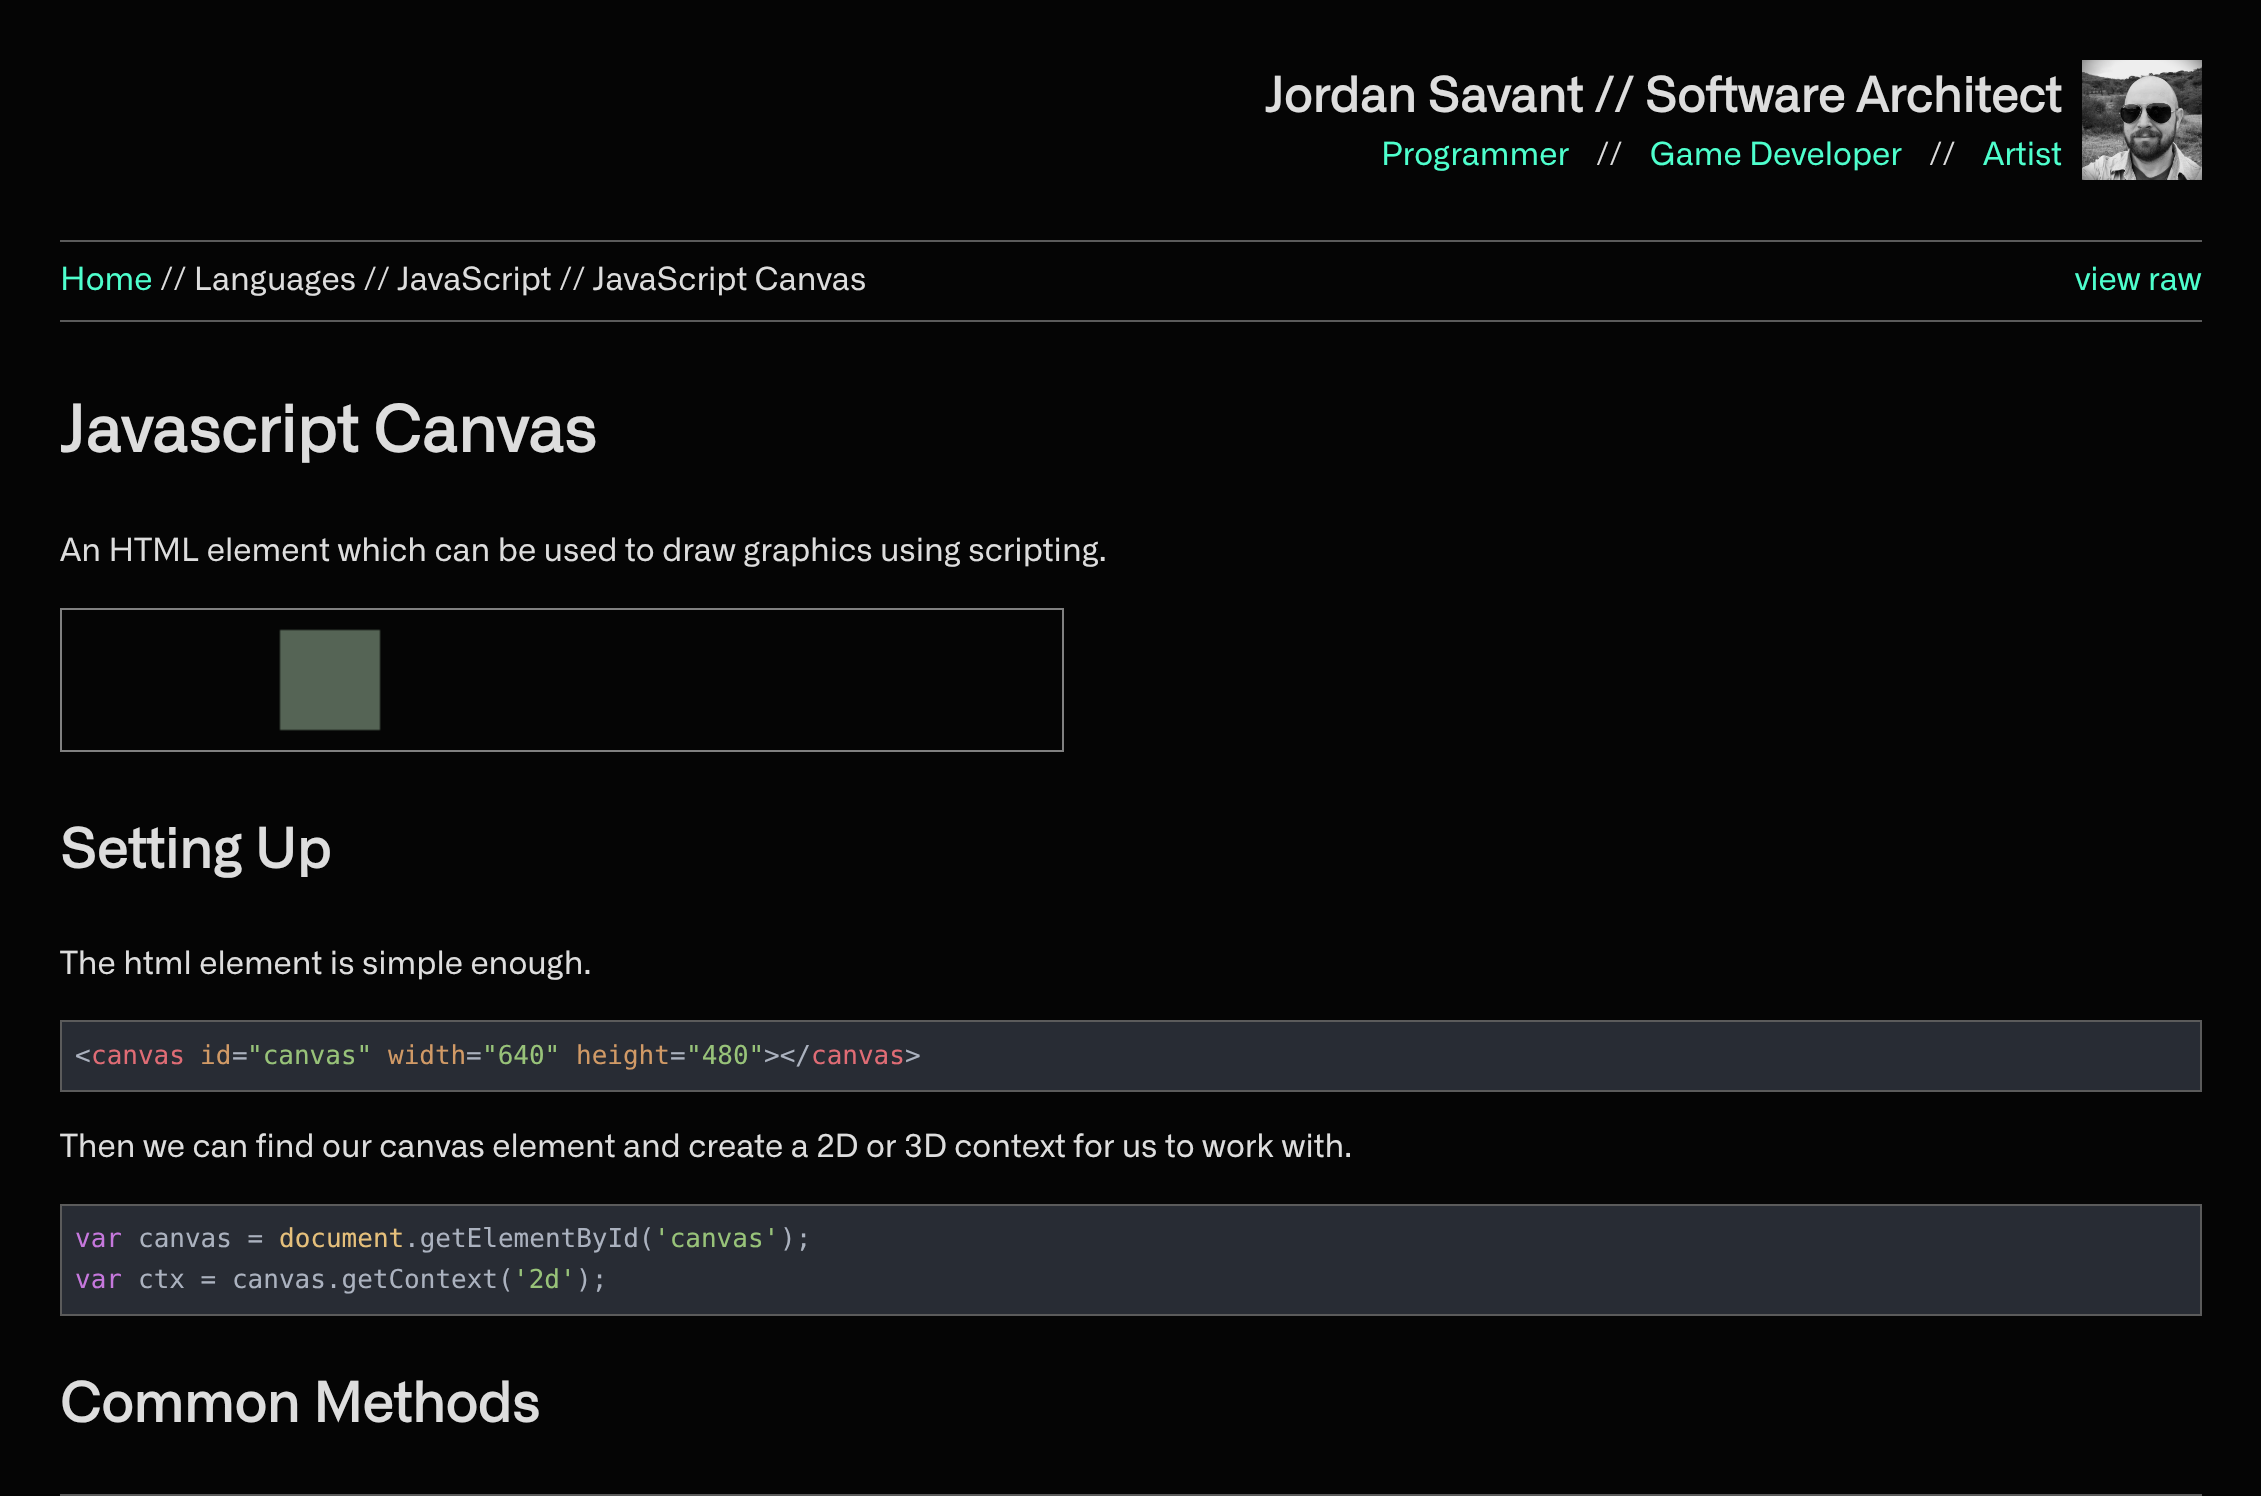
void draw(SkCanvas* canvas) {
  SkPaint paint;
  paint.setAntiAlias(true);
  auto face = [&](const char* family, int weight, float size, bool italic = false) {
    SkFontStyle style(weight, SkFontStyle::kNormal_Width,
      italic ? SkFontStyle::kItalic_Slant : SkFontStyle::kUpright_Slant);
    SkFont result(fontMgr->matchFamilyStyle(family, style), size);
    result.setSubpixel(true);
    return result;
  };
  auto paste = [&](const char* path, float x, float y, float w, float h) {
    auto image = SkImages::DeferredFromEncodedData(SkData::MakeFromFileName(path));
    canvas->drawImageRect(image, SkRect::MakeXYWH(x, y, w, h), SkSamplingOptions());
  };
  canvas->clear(0xff050505);
  paste("img/1.png", 2082, 60, 120, 120);
  paint.setColor(0xff5b5b5b);
  canvas->drawRect(SkRect::MakeXYWH(60, 240, 2142, 2), paint);
  canvas->drawRect(SkRect::MakeXYWH(60, 320, 2142, 2), paint);
  paint.setStroke(true);
  paint.setStrokeWidth(2);
  paint.setColor(0xff808080);
  canvas->drawRect(SkRect::MakeXYWH(61, 609, 1002, 142), paint);
  paste("img/2.png", 279, 629, 102, 102);
  paint.setColor(0xff5b5b5b);
  canvas->drawRect(SkRect::MakeXYWH(61, 1021, 2140, 70), paint);
  paint.setStroke(false);
  paint.setColor(0xff282c34);
  canvas->drawRect(SkRect::MakeXYWH(62, 1022, 2138, 68), paint);
  paint.setStroke(true);
  paint.setColor(0xff5b5b5b);
  canvas->drawRect(SkRect::MakeXYWH(61, 1205, 2140, 110), paint);
  paint.setStroke(false);
  paint.setColor(0xff282c34);
  canvas->drawRect(SkRect::MakeXYWH(62, 1206, 2138, 108), paint);
  paint.setStroke(true);
  paint.setColor(0xff5b5b5b);
  canvas->drawRect(SkRect::MakeXYWH(61, 1495, 2140, 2), paint);
  auto f0 = face("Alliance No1", 700, 48);
  paint.setStroke(false);
  paint.setColor(0xffdddddd);
  canvas->drawString("Jordan Savant // Software Architect", 1265, 112, f0, paint);
  auto f1 = face("Alliance No1", 400, 32);
  paint.setColor(0xff4effcd);
  canvas->drawString("Programmer", 1381, 165, f1, paint);
  paint.setColor(0xffdddddd);
  canvas->drawString("//", 1596, 165, f1, paint);
  paint.setColor(0xff4effcd);
  canvas->drawString("Game Developer", 1650, 165, f1, paint);
  paint.setColor(0xffdddddd);
  canvas->drawString("//", 1929, 165, f1, paint);
  paint.setColor(0xff4effcd);
  canvas->drawString("Artist", 1983, 165, f1, paint);
  canvas->drawString("Home", 60, 290, f1, paint);
  paint.setColor(0xffdddddd);
  canvas->drawString("// Languages // JavaScript // JavaScript Canvas", 160, 290, f1, paint);
  paint.setColor(0xff4effcd);
  canvas->drawString("view raw", 2075, 290, f1, paint);
  auto f2 = face("Alliance No1", 700, 64);
  paint.setColor(0xffdddddd);
  canvas->drawString("Javascript Canvas", 60, 452, f2, paint);
  canvas->drawString("An HTML element which can be used to draw graphics using scripting.", 60, 561, f1, paint);
  auto f3 = face("Alliance No1", 700, 54.5f);
  canvas->drawString("Setting Up", 60, 868, f3, paint);
  canvas->drawString("The html element is simple enough.", 60, 974, f1, paint);
  auto f4 = face("DejaVu Sans Mono", 400, 26);
  paint.setColor(0xffabb2bf);
  canvas->drawString("<", 75, 1064, f4, paint);
  paint.setColor(0xffe06c75);
  canvas->drawString("canvas", 91, 1064, f4, paint);
  paint.setColor(0xffd19a66);
  canvas->drawString("id", 200, 1064, f4, paint);
  paint.setColor(0xffabb2bf);
  canvas->drawString("=", 232, 1064, f4, paint);
  paint.setColor(0xff98c379);
  canvas->drawString("\"canvas\"", 247, 1064, f4, paint);
  paint.setColor(0xffd19a66);
  canvas->drawString("width", 388, 1064, f4, paint);
  paint.setColor(0xffabb2bf);
  canvas->drawString("=", 466, 1064, f4, paint);
  paint.setColor(0xff98c379);
  canvas->drawString("\"640\"", 482, 1064, f4, paint);
  paint.setColor(0xffd19a66);
  canvas->drawString("height", 576, 1064, f4, paint);
  paint.setColor(0xffabb2bf);
  canvas->drawString("=", 670, 1064, f4, paint);
  paint.setColor(0xff98c379);
  canvas->drawString("\"480\"", 686, 1064, f4, paint);
  paint.setColor(0xffabb2bf);
  canvas->drawString("></", 764, 1064, f4, paint);
  paint.setColor(0xffe06c75);
  canvas->drawString("canvas", 811, 1064, f4, paint);
  paint.setColor(0xffabb2bf);
  canvas->drawString(">", 905, 1064, f4, paint);
  paint.setColor(0xffdddddd);
  canvas->drawString("Then we can find our canvas element and create a 2D or 3D context for us to work with.", 60, 1157, f1, paint);
  paint.setColor(0xffc678dd);
  canvas->drawString("var", 75, 1247, f4, paint);
  paint.setColor(0xffabb2bf);
  canvas->drawString("canvas =", 138, 1247, f4, paint);
  paint.setColor(0xffe6c07b);
  canvas->drawString("document", 279, 1247, f4, paint);
  paint.setColor(0xffabb2bf);
  canvas->drawString(".getElementById(", 404, 1247, f4, paint);
  paint.setColor(0xff98c379);
  canvas->drawString("'canvas'", 654, 1247, f4, paint);
  paint.setColor(0xffabb2bf);
  canvas->drawString(");", 780, 1247, f4, paint);
  paint.setColor(0xffc678dd);
  canvas->drawString("var", 75, 1288, f4, paint);
  paint.setColor(0xffabb2bf);
  canvas->drawString("ctx = canvas.getContext(", 138, 1288, f4, paint);
  paint.setColor(0xff98c379);
  canvas->drawString("'2d'", 513, 1288, f4, paint);
  paint.setColor(0xffabb2bf);
  canvas->drawString(");", 576, 1288, f4, paint);
  paint.setColor(0xffdddddd);
  canvas->drawString("Common Methods", 60, 1422, f3, paint);
}
